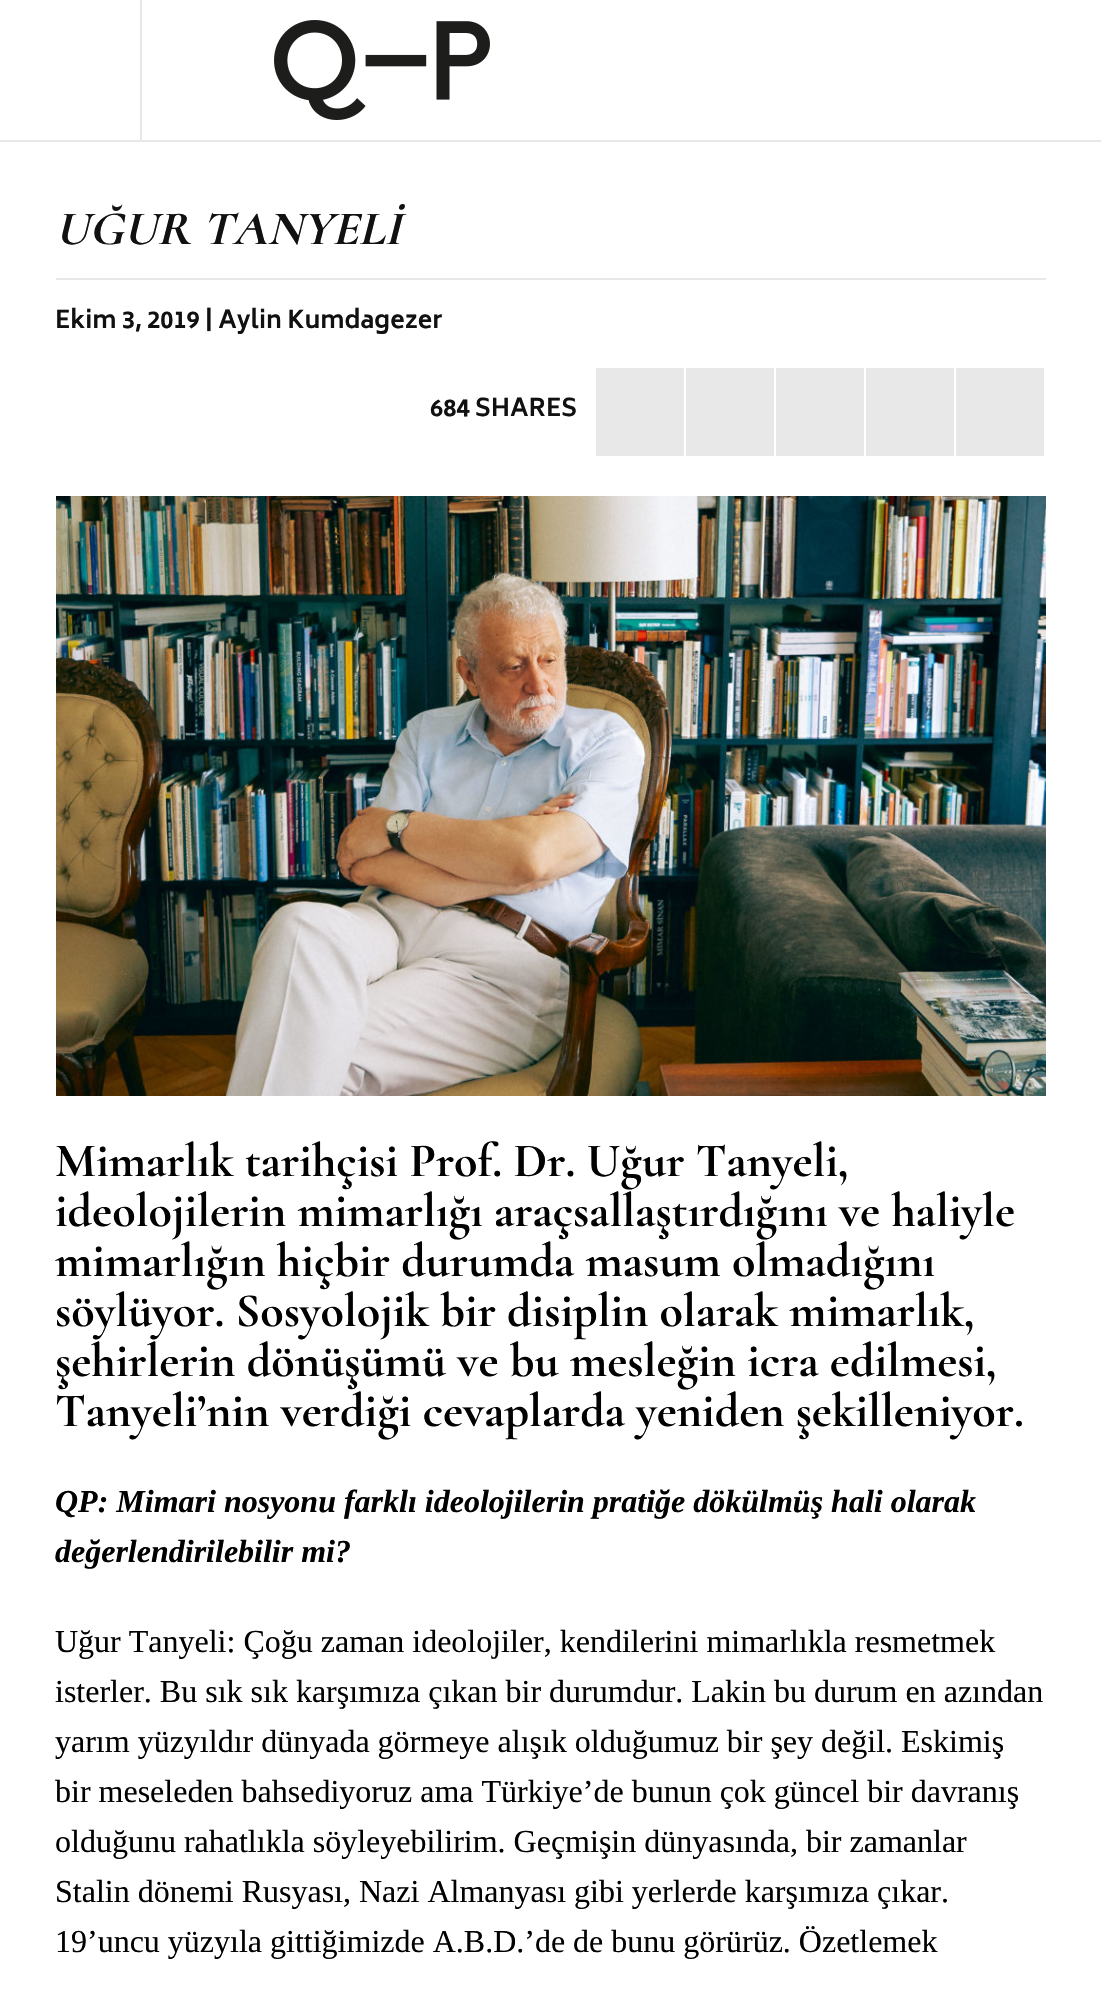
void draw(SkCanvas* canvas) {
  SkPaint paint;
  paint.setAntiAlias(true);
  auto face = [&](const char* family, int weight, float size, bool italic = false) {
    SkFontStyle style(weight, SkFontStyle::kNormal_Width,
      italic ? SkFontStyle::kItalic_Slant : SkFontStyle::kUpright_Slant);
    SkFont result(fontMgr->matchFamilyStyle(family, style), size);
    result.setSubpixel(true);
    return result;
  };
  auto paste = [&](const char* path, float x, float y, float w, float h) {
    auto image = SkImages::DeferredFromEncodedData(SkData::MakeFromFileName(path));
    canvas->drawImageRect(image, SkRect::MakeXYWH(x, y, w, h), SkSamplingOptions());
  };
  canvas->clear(0xffffffff);
  paint.setColor(0xffe8e8e8);
  canvas->drawRect(SkRect::MakeXYWH(0, 140, 1101, 2), paint);
  canvas->drawRect(SkRect::MakeXYWH(140, 0, 2, 140), paint);
  paste("img/1.png", 274, 20, 216, 100);
  {
    const struct { float x, y, w, h; SkColor color; } items[] = {
      {56, 278, 990, 2, 0xffe8e8e8},
      {596, 368, 88, 88, 0xffe8e8e8},
      {686, 368, 88, 88, 0xffe8e8e8},
      {776, 368, 88, 88, 0xffe8e8e8},
      {866, 368, 88, 88, 0xffe8e8e8},
      {956, 368, 88, 88, 0xffe8e8e8},
    };
    for (auto [x, y, w, h, color] : items) {
      paint.setColor(color);
      canvas->drawRect(SkRect::MakeXYWH(x, y, w, h), paint);
    }
  }
  paste("img/2.png", 56, 496, 990, 600);
  auto f0 = face("Cormorant", 700, 48, true);
  paint.setColor(0xff111111);
  canvas->drawString("UĞUR TANYELİ", 55, 244, f0, paint);
  auto f1 = face("Biryani", 700, 24);
  canvas->drawString("Ekim 3, 2019 | Aylin Kumdagezer", 55, 328, f1, paint);
  canvas->drawString("684 SHARES", 430, 416, f1, paint);
  auto f2 = face("Cormorant Garamond", 700, 48);
  paint.setColor(0xff000000);
  {
    const struct { const char* s; float x, y; } items[] = {
      {"Mimarlık tarihçisi Prof. Dr. Uğur Tanyeli,", 55, 1176},
      {"ideolojilerin mimarlığı araçsallaştırdığını ve haliyle", 55, 1226},
      {"mimarlığın hiçbir durumda masum olmadığını", 55, 1276},
      {"söylüyor. Sosyolojik bir disiplin olarak mimarlık,", 55, 1326},
      {"şehirlerin dönüşümü ve bu mesleğin icra edilmesi,", 55, 1376},
      {"Tanyeli’nin verdiği cevaplarda yeniden şekilleniyor.", 55, 1426},
    };
    for (auto [s, x, y] : items) {
      canvas->drawString(s, x, y, f2, paint);
    }
  }
  auto f3 = face("Liberation Serif", 700, 32, true);
  canvas->drawString("QP: Mimari nosyonu farklı ideolojilerin pratiğe dökülmüş hali olarak", 55, 1512, f3, paint);
  canvas->drawString("değerlendirilebilir mi?", 55, 1562, f3, paint);
  auto f4 = face("Liberation Serif", 400, 32);
  {
    const struct { const char* s; float x, y; } items[] = {
      {"Uğur Tanyeli: Çoğu zaman ideolojiler, kendilerini mimarlıkla resmetmek", 55, 1652},
      {"isterler. Bu sık sık karşımıza çıkan bir durumdur. Lakin bu durum en azından", 55, 1702},
      {"yarım yüzyıldır dünyada görmeye alışık olduğumuz bir şey değil. Eskimiş", 55, 1752},
      {"bir meseleden bahsediyoruz ama Türkiye’de bunun çok güncel bir davranış", 55, 1802},
      {"olduğunu rahatlıkla söyleyebilirim. Geçmişin dünyasında, bir zamanlar", 55, 1852},
      {"Stalin dönemi Rusyası, Nazi Almanyası gibi yerlerde karşımıza çıkar.", 55, 1902},
      {"19’uncu yüzyıla gittiğimizde A.B.D.’de de bunu görürüz. Özetlemek", 55, 1952},
    };
    for (auto [s, x, y] : items) {
      canvas->drawString(s, x, y, f4, paint);
    }
  }
}
